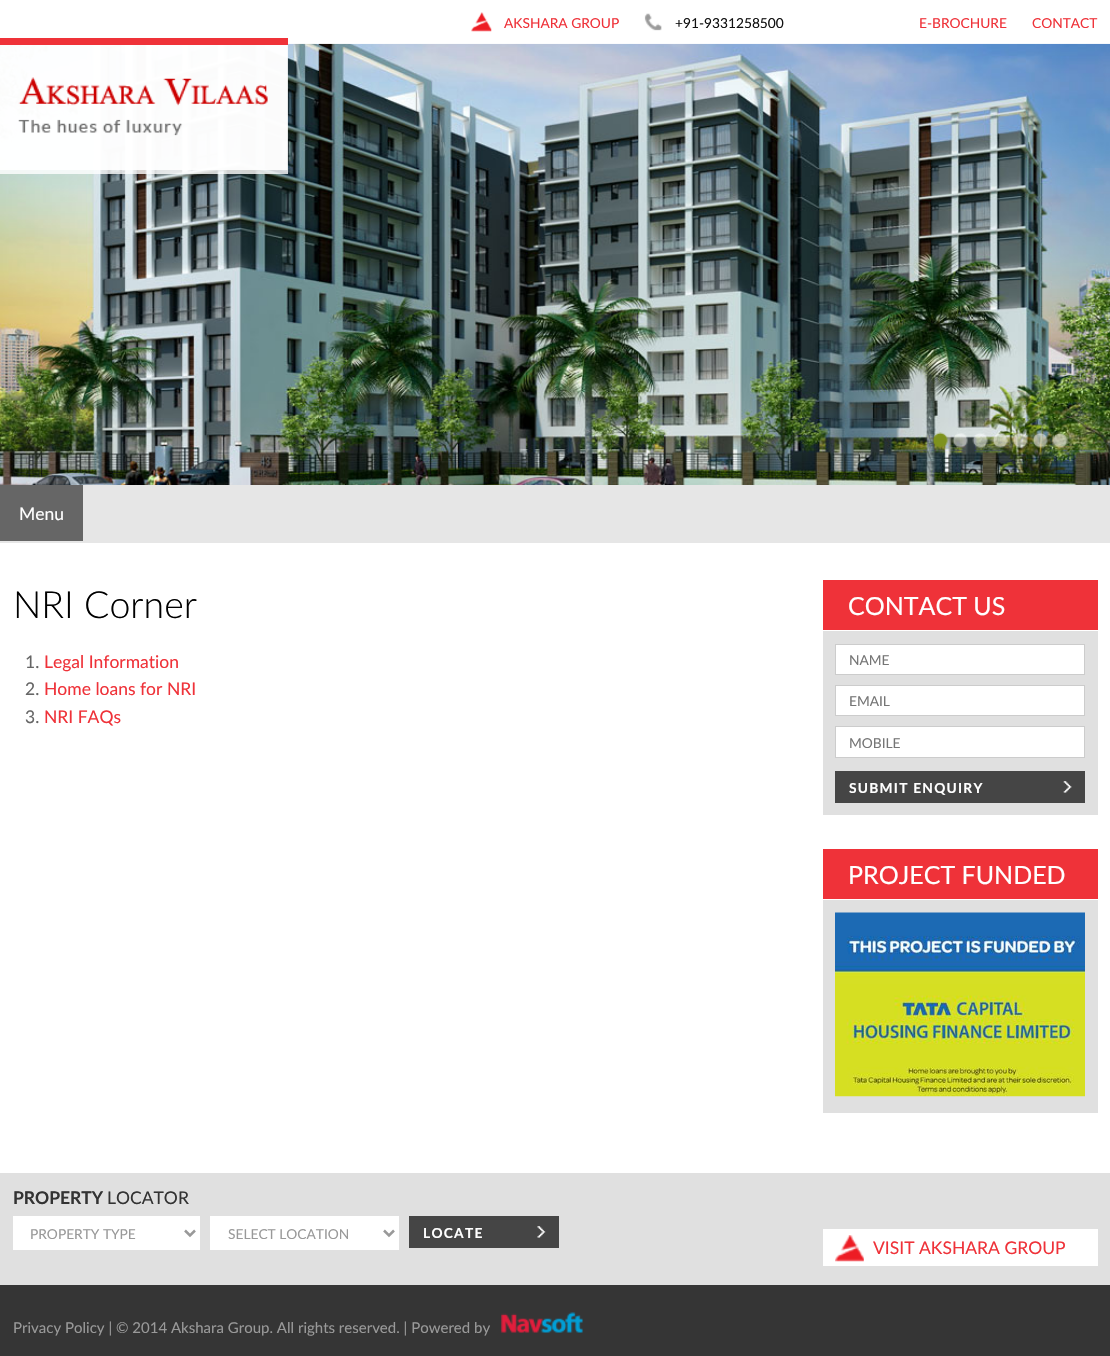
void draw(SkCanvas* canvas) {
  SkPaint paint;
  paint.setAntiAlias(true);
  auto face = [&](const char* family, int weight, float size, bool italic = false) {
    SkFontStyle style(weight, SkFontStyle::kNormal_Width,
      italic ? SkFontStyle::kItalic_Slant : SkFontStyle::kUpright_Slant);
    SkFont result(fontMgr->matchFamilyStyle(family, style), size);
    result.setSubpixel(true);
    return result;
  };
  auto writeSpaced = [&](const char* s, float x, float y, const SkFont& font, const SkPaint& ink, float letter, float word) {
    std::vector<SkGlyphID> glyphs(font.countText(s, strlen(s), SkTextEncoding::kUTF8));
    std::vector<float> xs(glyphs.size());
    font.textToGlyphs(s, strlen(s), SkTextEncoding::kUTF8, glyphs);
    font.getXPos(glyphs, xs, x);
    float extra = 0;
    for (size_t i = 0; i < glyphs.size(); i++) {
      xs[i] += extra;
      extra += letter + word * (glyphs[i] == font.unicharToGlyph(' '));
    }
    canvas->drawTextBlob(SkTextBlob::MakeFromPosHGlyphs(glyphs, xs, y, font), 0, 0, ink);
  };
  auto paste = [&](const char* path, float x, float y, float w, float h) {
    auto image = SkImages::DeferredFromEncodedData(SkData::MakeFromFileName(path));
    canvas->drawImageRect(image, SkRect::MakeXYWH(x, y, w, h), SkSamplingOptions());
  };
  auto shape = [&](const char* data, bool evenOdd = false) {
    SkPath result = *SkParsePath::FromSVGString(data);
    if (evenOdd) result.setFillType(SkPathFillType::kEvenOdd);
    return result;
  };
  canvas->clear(0xffffffff);
  paste("img/1.png", 471, 12, 21, 20);
  paste("img/2.png", 644, 13, 18, 18);
  paste("img/4.png", 0, 43, 1110, 442);
  paint.setColor(0xccffffff);
  canvas->drawRect(SkRect::MakeXYWH(0, 45, 288, 129), paint);
  paint.setColor(0xffef3239);
  canvas->drawRect(SkRect::MakeXYWH(0, 38, 288, 7), paint);
  paste("img/3.png", 0, 45, 288, 125);
  paste("img/5.png", 932, 432, 16, 16);
  paste("img/6.png", 952, 432, 16, 16);
  paste("img/7.png", 972, 432, 16, 16);
  paste("img/8.png", 992, 432, 16, 16);
  paste("img/9.png", 1012, 432, 16, 16);
  paste("img/10.png", 1032, 432, 16, 16);
  paste("img/11.png", 1052, 432, 16, 16);
  {
    const struct { float x, y, w, h; SkColor color; } items[] = {
      {0, 485, 1110, 58, 0xffe6e6e6},
      {0, 485, 83, 56, 0xff666666},
      {823, 631, 275, 184, 0xffe0e0e0},
      {823, 580, 275, 50, 0xffef3239},
    };
    for (auto [x, y, w, h, color] : items) {
      paint.setColor(color);
      canvas->drawRect(SkRect::MakeXYWH(x, y, w, h), paint);
    }
  }
  paint.setColor(0xffffffff);
  canvas->drawRect(SkRect::MakeXYWH(835.5f, 644.5f, 249, 30), paint);
  paint.setStroke(true);
  paint.setStrokeWidth(1);
  paint.setColor(0xffcccccc);
  canvas->drawRect(SkRect::MakeXYWH(835.5f, 644.5f, 249, 30), paint);
  paint.setStroke(false);
  paint.setColor(0xffffffff);
  canvas->drawRect(SkRect::MakeXYWH(835.5f, 685.5f, 249, 30), paint);
  paint.setStroke(true);
  paint.setColor(0xffcccccc);
  canvas->drawRect(SkRect::MakeXYWH(835.5f, 685.5f, 249, 30), paint);
  paint.setStroke(false);
  paint.setColor(0xffffffff);
  canvas->drawRect(SkRect::MakeXYWH(835.5f, 726.5f, 249, 31), paint);
  paint.setStroke(true);
  paint.setColor(0xffcccccc);
  canvas->drawRect(SkRect::MakeXYWH(835.5f, 726.5f, 249, 31), paint);
  paint.setStroke(false);
  paint.setColor(0xff454545);
  canvas->drawRect(SkRect::MakeXYWH(835, 771, 250, 32), paint);
  paste("img/12.png", 1063, 781, 9, 12);
  paint.setColor(0xffe0e0e0);
  canvas->drawRect(SkRect::MakeXYWH(823, 900, 275, 213), paint);
  paint.setColor(0xffef3239);
  canvas->drawRect(SkRect::MakeXYWH(823, 849, 275, 50), paint);
  paste("img/13.png", 835, 912, 250, 185);
  paint.setColor(0xffe0e0e0);
  canvas->drawRect(SkRect::MakeXYWH(0, 1173, 1110, 112), paint);
  paint.setColor(0xffffffff);
  canvas->drawRect(SkRect::MakeXYWH(13, 1216, 187, 34), paint);
  paint.setStroke(true);
  paint.setStrokeWidth(2.5f);
  paint.setColor(0xff999999);
  canvas->drawPath(shape("M185 1230.5L190 1235.5L195 1230.5"), paint);
  paint.setStroke(false);
  paint.setColor(0xffffffff);
  canvas->drawRect(SkRect::MakeXYWH(210, 1216, 189, 34), paint);
  paint.setStroke(true);
  paint.setColor(0xff999999);
  canvas->drawPath(shape("M384 1230.5L389 1235.5L394 1230.5"), paint);
  paint.setStroke(false);
  paint.setColor(0xff454545);
  canvas->drawRect(SkRect::MakeXYWH(409, 1216, 150, 32), paint);
  paste("img/14.png", 537, 1226, 9, 12);
  paint.setColor(0xffffffff);
  canvas->drawRect(SkRect::MakeXYWH(823, 1229, 275, 37), paint);
  paste("img/15.png", 835, 1235, 29, 27);
  paint.setColor(0xff353535);
  canvas->drawRect(SkRect::MakeXYWH(0, 1285, 1110, 71), paint);
  paste("img/16.png", 501, 1312, 82, 21);
  auto f0 = face("Lato", 400, 13.75f);
  paint.setColor(0xffef3239);
  canvas->drawString("AKSHARA GROUP", 504, 28, f0, paint);
  paint.setColor(0xff111111);
  canvas->drawString("+91-9331258500", 675, 28, f0, paint);
  paint.setColor(0xffef3239);
  canvas->drawString("E-BROCHURE", 919, 28, f0, paint);
  canvas->drawString("CONTACT", 1032, 28, f0, paint);
  auto f1 = face("Lato", 400, 17.5f);
  paint.setColor(0xffffffff);
  canvas->drawString("Menu", 19, 520, f1, paint);
  auto f2 = face("Lato", 300, 37.5f);
  paint.setColor(0xff000000);
  canvas->drawString("NRI Corner", 13, 618, f2, paint);
  paint.setColor(0xff666666);
  canvas->drawString("1.", 25, 668, f1, paint);
  paint.setColor(0xffef3239);
  canvas->drawString("Legal Information", 44, 668, f1, paint);
  paint.setColor(0xff666666);
  canvas->drawString("2.", 25, 695, f1, paint);
  paint.setColor(0xffef3239);
  canvas->drawString("Home loans for NRI", 44, 695, f1, paint);
  paint.setColor(0xff666666);
  canvas->drawString("3.", 25, 723, f1, paint);
  paint.setColor(0xffef3239);
  canvas->drawString("NRI FAQs", 44, 723, f1, paint);
  auto f3 = face("Lato", 400, 25);
  paint.setColor(0xffffffff);
  canvas->drawString("CONTACT US", 848, 615, f3, paint);
  paint.setColor(0xff757575);
  {
    const struct { const char* s; float x, y; } items[] = {
      {"NAME", 849, 665},
      {"EMAIL", 849, 706},
      {"MOBILE", 849, 748},
    };
    for (auto [s, x, y] : items) {
      canvas->drawString(s, x, y, f0, paint);
    }
  }
  auto f4 = face("Lato", 700, 13.75f);
  paint.setColor(0xffffffff);
  writeSpaced("SUBMIT ENQUIRY", 849, 793, f4, paint, 1.25f, 0);
  canvas->drawString("PROJECT FUNDED", 848, 884, f3, paint);
  auto f5 = face("Lato", 700, 17.5f);
  paint.setColor(0xff333333);
  canvas->drawString("PROPERTY", 13, 1204, f5, paint);
  canvas->drawString("LOCATOR", 107, 1204, f1, paint);
  paint.setColor(0xff999999);
  canvas->drawString("PROPERTY TYPE", 30, 1239, f0, paint);
  canvas->drawString("SELECT LOCATION", 228, 1239, f0, paint);
  paint.setColor(0xffffffff);
  writeSpaced("LOCATE", 423, 1238, f4, paint, 1.25f, 0);
  paint.setColor(0xffef3239);
  canvas->drawString("VISIT AKSHARA GROUP", 873, 1254, f1, paint);
  auto f6 = face("Lato", 400, 15);
  paint.setColor(0xff999999);
  canvas->drawString("Privacy Policy | © 2014 Akshara Group. All rights reserved. | Powered by", 13, 1333, f6, paint);
}
